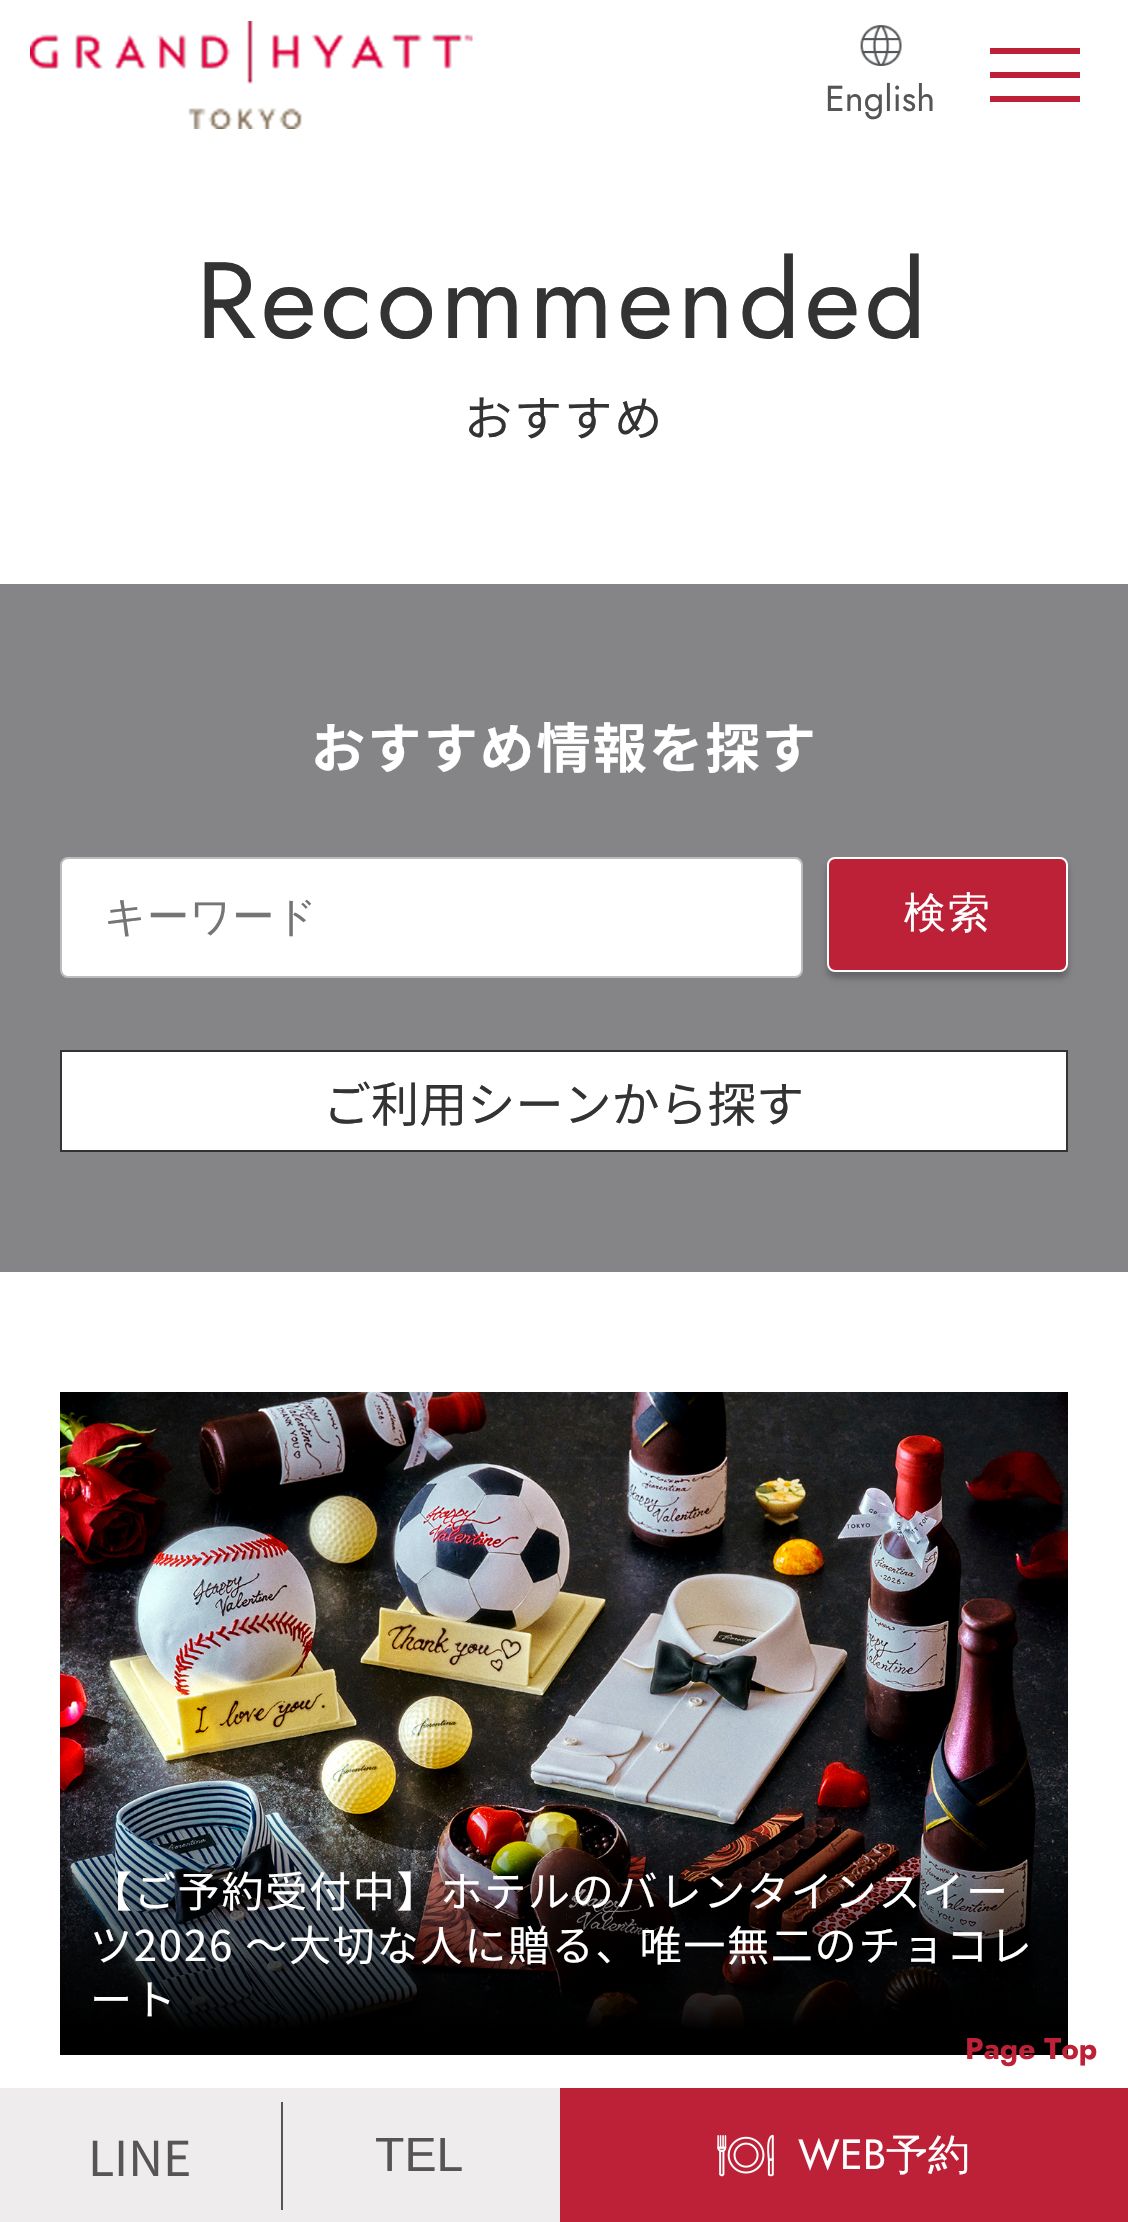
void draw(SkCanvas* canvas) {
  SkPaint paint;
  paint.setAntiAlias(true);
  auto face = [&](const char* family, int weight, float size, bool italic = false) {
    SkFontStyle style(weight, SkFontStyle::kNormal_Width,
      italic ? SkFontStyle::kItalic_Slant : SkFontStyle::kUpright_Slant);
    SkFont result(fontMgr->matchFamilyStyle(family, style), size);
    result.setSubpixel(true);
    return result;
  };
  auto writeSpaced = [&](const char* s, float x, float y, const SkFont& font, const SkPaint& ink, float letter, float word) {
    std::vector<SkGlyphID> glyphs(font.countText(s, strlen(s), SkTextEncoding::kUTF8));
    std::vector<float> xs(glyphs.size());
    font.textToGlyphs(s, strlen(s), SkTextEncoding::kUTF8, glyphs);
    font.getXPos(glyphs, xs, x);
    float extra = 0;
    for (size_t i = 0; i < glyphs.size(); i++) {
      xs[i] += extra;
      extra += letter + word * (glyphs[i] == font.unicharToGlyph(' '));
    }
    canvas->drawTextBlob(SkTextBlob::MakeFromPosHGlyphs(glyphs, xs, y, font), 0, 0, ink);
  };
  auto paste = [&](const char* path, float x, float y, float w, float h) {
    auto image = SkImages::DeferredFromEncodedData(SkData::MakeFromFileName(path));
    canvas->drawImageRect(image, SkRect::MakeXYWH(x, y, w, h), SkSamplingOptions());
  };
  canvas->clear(0xffffffff);
  paste("img/1.png", 30, 21, 443, 108);
  paste("img/2.png", 860, 25, 42, 41);
  {
    const struct { float x, y, w, h; SkColor color; } items[] = {
      {990, 48, 90, 6, 0xffbd2137},
      {990, 72, 90, 6, 0xffbd2137},
      {990, 96, 90, 6, 0xffbd2137},
      {0, 584, 1128, 688, 0xff858588},
    };
    for (auto [x, y, w, h, color] : items) {
      paint.setColor(color);
      canvas->drawRect(SkRect::MakeXYWH(x, y, w, h), paint);
    }
  }
  paint.setColor(0xffffffff);
  canvas->drawRoundRect(SkRect::MakeXYWH(61, 858, 741, 119), 7, 7, paint);
  paint.setStroke(true);
  paint.setStrokeWidth(2);
  paint.setColor(0xffbcbcbd);
  canvas->drawRoundRect(SkRect::MakeXYWH(61, 858, 741, 119), 7, 7, paint);
  paint.setStroke(false);
  paint.setColor(0x40000000);
  paint.setMaskFilter(SkMaskFilter::MakeBlur(kNormal_SkBlurStyle, 3));
  canvas->drawRoundRect(SkRect::MakeXYWH(827, 863, 241, 115), 8, 8, paint);
  paint.setMaskFilter(nullptr);
  paint.setColor(0xffbd2137);
  canvas->drawRoundRect(SkRect::MakeXYWH(828, 858, 239, 113), 7, 7, paint);
  paint.setStroke(true);
  paint.setColor(0xffffffff);
  canvas->drawRoundRect(SkRect::MakeXYWH(828, 858, 239, 113), 7, 7, paint);
  paint.setStroke(false);
  canvas->drawRect(SkRect::MakeXYWH(61, 1051, 1006, 100), paint);
  paint.setStroke(true);
  paint.setColor(0xff333333);
  canvas->drawRect(SkRect::MakeXYWH(61, 1051, 1006, 100), paint);
  paste("img/3.png", 60, 1392, 1008, 663);
  paint.setStroke(false);
  {
    const struct { float x, y, w, h; SkColor color; } items[] = {
      {0, 2088, 560, 134, 0xffeeecec},
      {281, 2102, 2, 108, 0xff555555},
      {560, 2088, 568, 134, 0xffbd2137},
    };
    for (auto [x, y, w, h, color] : items) {
      paint.setColor(color);
      canvas->drawRect(SkRect::MakeXYWH(x, y, w, h), paint);
    }
  }
  paste("img/4.png", 717, 2134, 57, 43);
  auto f0 = face("Jost", 400, 36);
  paint.setColor(0xff555555);
  canvas->drawString("English", 825, 111, f0, paint);
  auto f1 = face("Jost", 400, 108.25f);
  paint.setColor(0xff333333);
  writeSpaced("Recommended", 196, 338, f1, paint, 4.25f, 0);
  auto f2 = face("Noto Sans JP", 400, 48.1f);
  writeSpaced("おすすめ", 464, 436, f2, paint, 2, 0);
  auto f3 = face("Noto Sans JP", 700, 54.1f);
  paint.setColor(0xffffffff);
  writeSpaced("おすすめ情報を探す", 311, 768, f3, paint, 2.25f, 0);
  auto f4 = face("WenQuanYi Zen Hei", 500, 42.1f);
  paint.setColor(0xff757575);
  canvas->drawString("キーワード", 104, 931, f4, paint);
  paint.setColor(0xffffffff);
  writeSpaced("検索", 904, 927, f4, paint, 1.7f, 0);
  paint.setColor(0xff333333);
  canvas->drawString("ご利用シーンから探す", 323, 1122, f2, paint);
  auto f5 = face("Noto Sans JP", 400, 42.1f);
  paint.setColor(0xffffffff);
  {
    const struct { const char* s; float x, y; } items[] = {
      {"【ご予約受付中】ホテルのバレンタインスイー", 90, 1907},
      {"ツ2026 ～大切な人に贈る、唯一無二のチョコレ", 90, 1961},
      {"ート", 90, 2015},
    };
    for (auto [s, x, y] : items) {
      writeSpaced(s, x, y, f5, paint, 1.7f, 0);
    }
  }
  auto f6 = face("Jost", 700, 30);
  paint.setColor(0xffbd2137);
  canvas->drawString("Page Top", 965, 2059, f6, paint);
  paint.setColor(0xff555555);
  canvas->drawString("LINE", 88, 2176, f2, paint);
  auto f7 = face("Liberation Sans", 400, 48.1f);
  canvas->drawString("TEL", 375, 2171, f7, paint);
  auto f8 = face("Jost", 400, 42.1f);
  paint.setColor(0xffffffff);
  canvas->drawString("WEB", 798, 2169, f8, paint);
  canvas->drawString("予約", 886, 2169, f4, paint);
}
